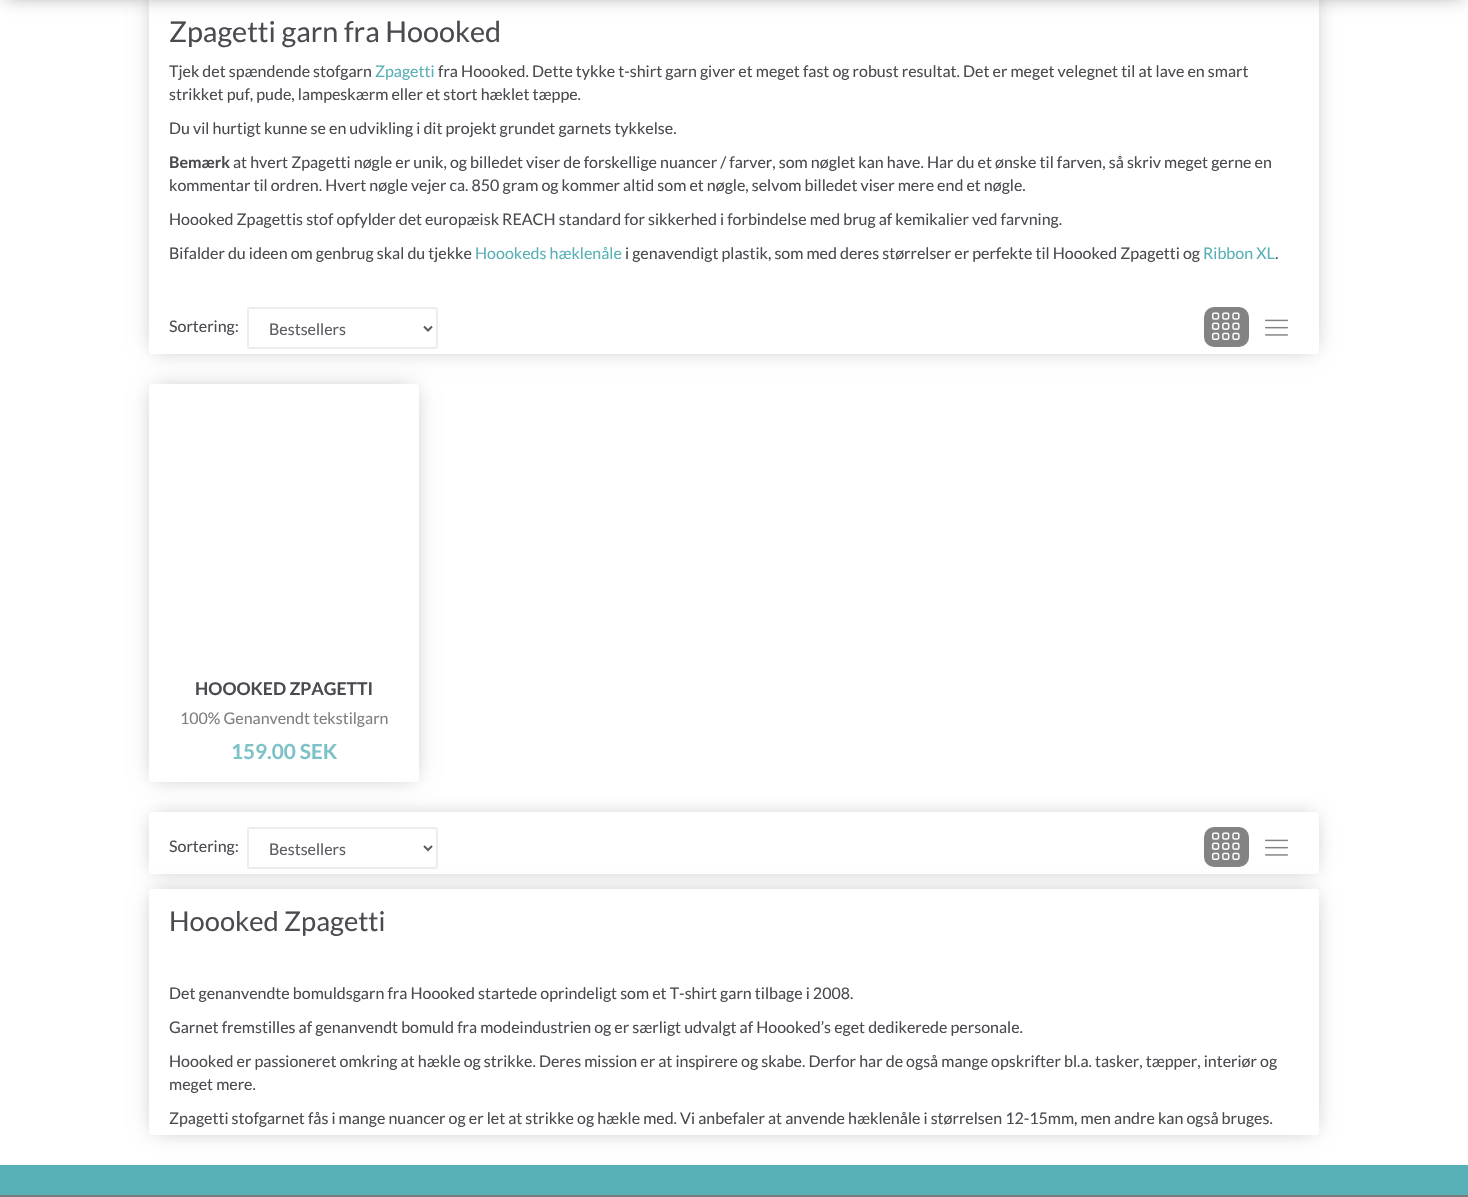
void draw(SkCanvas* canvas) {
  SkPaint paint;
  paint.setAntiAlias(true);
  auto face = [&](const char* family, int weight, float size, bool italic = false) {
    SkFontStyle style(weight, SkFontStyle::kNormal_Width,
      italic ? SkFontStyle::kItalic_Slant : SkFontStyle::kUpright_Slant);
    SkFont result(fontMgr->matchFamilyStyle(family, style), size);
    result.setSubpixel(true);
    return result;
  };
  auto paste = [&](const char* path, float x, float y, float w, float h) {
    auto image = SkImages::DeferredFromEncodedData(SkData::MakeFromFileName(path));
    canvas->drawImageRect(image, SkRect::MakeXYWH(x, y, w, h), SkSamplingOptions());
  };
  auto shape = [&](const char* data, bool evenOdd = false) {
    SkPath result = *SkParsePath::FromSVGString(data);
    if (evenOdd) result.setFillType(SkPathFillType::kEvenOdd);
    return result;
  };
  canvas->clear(0xffffffff);
  paint.setColor(0xffb8b8b8);
  paint.setMaskFilter(SkMaskFilter::MakeBlur(kNormal_SkBlurStyle, 10));
  canvas->drawRect(SkRect::MakeXYWH(154, -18, 1160, 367), paint);
  paint.setMaskFilter(nullptr);
  paint.setColor(0xffffffff);
  canvas->drawRoundRect(SkRect::MakeXYWH(149, -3, 1170, 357), 3, 3, paint);
  paint.setColor(0xff949494);
  paint.setMaskFilter(SkMaskFilter::MakeBlur(kNormal_SkBlurStyle, 10));
  canvas->drawRect(SkRect::MakeXYWH(5, -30, 1458, 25), paint);
  paint.setMaskFilter(nullptr);
  paint.setStroke(true);
  paint.setStrokeWidth(2);
  paint.setColor(0xffededed);
  canvas->drawRoundRect(SkRect::MakeXYWH(248, 308, 189, 40), 2, 2, paint);
  paint.setColor(0xff5c5b63);
  canvas->drawPath(shape("M424 326.5L428 330.5L432 326.5"), paint);
  paint.setStroke(false);
  paint.setColor(0xff838383);
  canvas->drawRoundRect(SkRect::MakeXYWH(1204, 307, 45, 40), 10, 10, paint);
  paste("img/1.png", 1212, 312, 28, 28);
  paste("img/2.png", 1265, 319, 23, 17);
  paint.setColor(0xffb8b8b8);
  paint.setMaskFilter(SkMaskFilter::MakeBlur(kNormal_SkBlurStyle, 10));
  canvas->drawRect(SkRect::MakeXYWH(154, 389, 260, 388), paint);
  paint.setMaskFilter(nullptr);
  paint.setColor(0xffffffff);
  canvas->drawRoundRect(SkRect::MakeXYWH(149, 384, 270, 398), 3, 3, paint);
  paint.setColor(0xffb8b8b8);
  paint.setMaskFilter(SkMaskFilter::MakeBlur(kNormal_SkBlurStyle, 10));
  canvas->drawRect(SkRect::MakeXYWH(154, 817, 1160, 52), paint);
  paint.setMaskFilter(nullptr);
  paint.setColor(0xffffffff);
  canvas->drawRoundRect(SkRect::MakeXYWH(149, 812, 1170, 62), 3, 3, paint);
  paint.setColor(0xffb8b8b8);
  paint.setMaskFilter(SkMaskFilter::MakeBlur(kNormal_SkBlurStyle, 10));
  canvas->drawRect(SkRect::MakeXYWH(154, 894, 1160, 236), paint);
  paint.setMaskFilter(nullptr);
  paint.setStroke(true);
  paint.setColor(0xffededed);
  canvas->drawRoundRect(SkRect::MakeXYWH(248, 828, 189, 40), 2, 2, paint);
  paint.setColor(0xff5c5b63);
  canvas->drawPath(shape("M424 846L428 850L432 846"), paint);
  paint.setStroke(false);
  paint.setColor(0xff838383);
  canvas->drawRoundRect(SkRect::MakeXYWH(1204, 827, 45, 40), 10, 10, paint);
  paste("img/1.png", 1212, 832, 28, 28);
  paste("img/2.png", 1265, 839, 23, 17);
  paint.setColor(0xffffffff);
  canvas->drawRoundRect(SkRect::MakeXYWH(149, 889, 1170, 246), 3, 3, paint);
  paint.setColor(0xff7c7c7c);
  canvas->drawRect(SkRect::MakeXYWH(0, 1195, 1468, 2), paint);
  paint.setColor(0xff58b1b7);
  canvas->drawRect(SkRect::MakeXYWH(0, 1165, 1468, 30), paint);
  auto f0 = face("Lato", 400, 28.75f);
  paint.setColor(0xff4b4a50);
  canvas->drawString("Zpagetti garn fra Hoooked", 169, 42, f0, paint);
  auto f1 = face("Lato", 400, 16);
  canvas->drawString("Tjek det spændende stofgarn", 169, 77, f1, paint);
  paint.setColor(0xff58b1b7);
  canvas->drawString("Zpagetti", 375, 77, f1, paint);
  paint.setColor(0xff4b4a50);
  {
    const struct { const char* s; float x, y; } items[] = {
      {"fra Hoooked. Dette tykke t-shirt garn giver et meget fast og robust resultat. Det er meget velegnet til at lave en smart", 438, 77},
      {"strikket puf, pude, lampeskærm eller et stort hæklet tæppe.", 169, 100},
      {"Du vil hurtigt kunne se en udvikling i dit projekt grundet garnets tykkelse.", 169, 134},
    };
    for (auto [s, x, y] : items) {
      canvas->drawString(s, x, y, f1, paint);
    }
  }
  auto f2 = face("Lato", 700, 16);
  canvas->drawString("Bemærk", 169, 168, f2, paint);
  {
    const struct { const char* s; float x, y; } items[] = {
      {"at hvert Zpagetti nøgle er unik, og billedet viser de forskellige nuancer / farver, som nøglet kan have. Har du et ønske til farven, så skriv meget gerne en", 233, 168},
      {"kommentar til ordren. Hvert nøgle vejer ca. 850 gram og kommer altid som et nøgle, selvom billedet viser mere end et nøgle.", 169, 191},
      {"Hoooked Zpagettis stof opfylder det europæisk REACH standard for sikkerhed i forbindelse med brug af kemikalier ved farvning.", 169, 225},
      {"Bifalder du ideen om genbrug skal du tjekke", 169, 259},
    };
    for (auto [s, x, y] : items) {
      canvas->drawString(s, x, y, f1, paint);
    }
  }
  paint.setColor(0xff58b1b7);
  canvas->drawString("Hoookeds hæklenåle", 475, 259, f1, paint);
  paint.setColor(0xff4b4a50);
  canvas->drawString("i genavendigt plastik, som med deres størrelser er perfekte til Hoooked Zpagetti og", 625, 259, f1, paint);
  paint.setColor(0xff58b1b7);
  canvas->drawString("Ribbon XL", 1203, 259, f1, paint);
  paint.setColor(0xff4b4a50);
  canvas->drawString(".", 1275, 259, f1, paint);
  canvas->drawString("Sortering:", 169, 332, f1, paint);
  paint.setColor(0xff5c5b63);
  canvas->drawString("Bestsellers", 269, 335, f1, paint);
  auto f3 = face("Lato", 700, 17.6f);
  paint.setColor(0xff4b4a50);
  canvas->drawString("HOOOKED ZPAGETTI", 195, 695, f3, paint);
  paint.setColor(0xff7f7f7f);
  canvas->drawString("100% Genanvendt tekstilgarn", 180, 724, f1, paint);
  auto f4 = face("Lato", 700, 20.75f);
  paint.setColor(0xff7dc2c7);
  canvas->drawString("159.00 SEK", 231, 759, f4, paint);
  paint.setColor(0xff4b4a50);
  canvas->drawString("Sortering:", 169, 852, f1, paint);
  paint.setColor(0xff5c5b63);
  canvas->drawString("Bestsellers", 269, 855, f1, paint);
  auto f5 = face("Lato", 400, 27.25f);
  paint.setColor(0xff4b4a50);
  canvas->drawString("Hoooked Zpagetti", 169, 931, f5, paint);
  {
    const struct { const char* s; float x, y; } items[] = {
      {"Det genanvendte bomuldsgarn fra Hoooked startede oprindeligt som et T-shirt garn tilbage i 2008.", 169, 999},
      {"Garnet fremstilles af genanvendt bomuld fra modeindustrien og er særligt udvalgt af Hoooked’s eget dedikerede personale.", 169, 1033},
      {"Hoooked er passioneret omkring at hækle og strikke. Deres mission er at inspirere og skabe. Derfor har de også mange opskrifter bl.a. tasker, tæpper, interiør og", 169, 1067},
      {"meget mere.", 169, 1090},
      {"Zpagetti stofgarnet fås i mange nuancer og er let at strikke og hækle med. Vi anbefaler at anvende hæklenåle i størrelsen 12-15mm, men andre kan også bruges.", 169, 1124},
    };
    for (auto [s, x, y] : items) {
      canvas->drawString(s, x, y, f1, paint);
    }
  }
}
